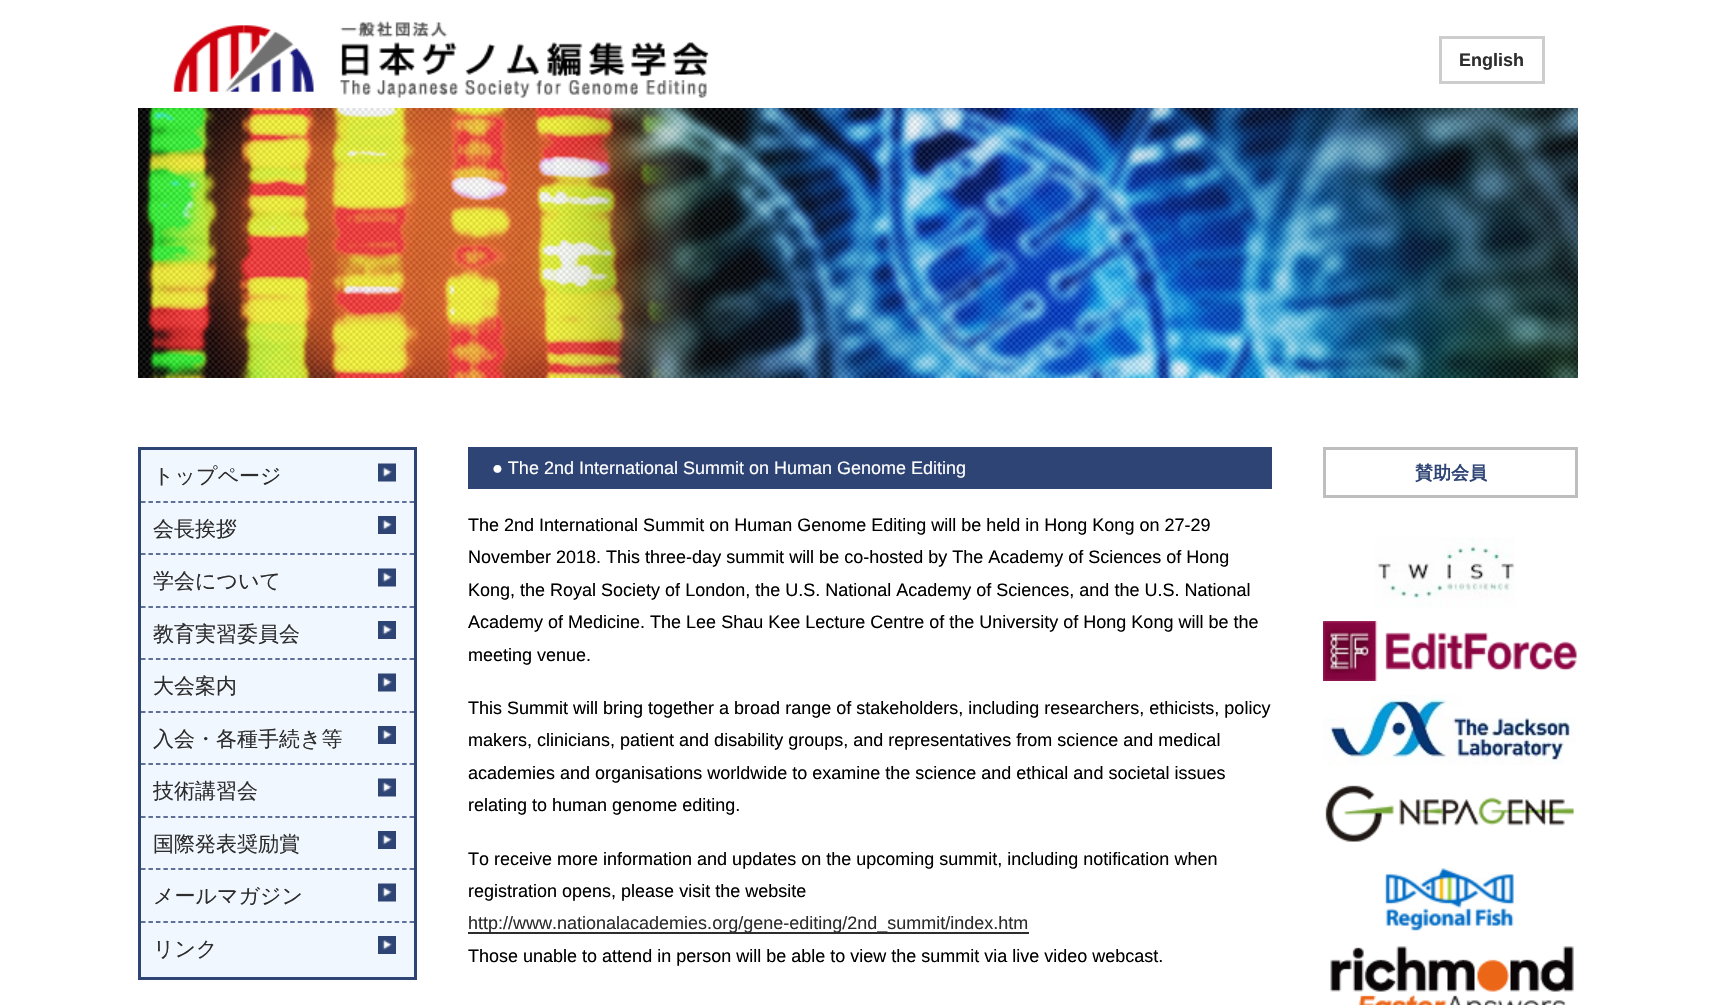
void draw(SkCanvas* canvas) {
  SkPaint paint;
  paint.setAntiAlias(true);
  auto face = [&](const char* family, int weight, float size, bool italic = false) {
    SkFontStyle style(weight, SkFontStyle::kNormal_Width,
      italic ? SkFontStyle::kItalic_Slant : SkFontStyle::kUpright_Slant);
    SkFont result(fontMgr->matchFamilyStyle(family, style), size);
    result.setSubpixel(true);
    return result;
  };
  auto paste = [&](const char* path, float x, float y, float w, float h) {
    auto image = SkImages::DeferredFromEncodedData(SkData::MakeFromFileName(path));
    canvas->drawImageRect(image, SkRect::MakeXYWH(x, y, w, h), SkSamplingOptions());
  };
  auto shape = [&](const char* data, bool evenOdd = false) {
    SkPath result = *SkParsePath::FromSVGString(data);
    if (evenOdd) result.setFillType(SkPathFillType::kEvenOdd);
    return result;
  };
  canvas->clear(0xffffffff);
  paste("img/1.png", 173, 20, 536, 78);
  paint.setStroke(true);
  paint.setStrokeWidth(3);
  paint.setColor(0xffcdcdcd);
  canvas->drawRect(SkRect::MakeXYWH(1440.5f, 37.5f, 103, 45), paint);
  paste("img/2.png", 138, 108, 1440, 270);
  paint.setStroke(false);
  paint.setColor(0xfff1f7ff);
  canvas->drawRect(SkRect::MakeXYWH(139.5f, 448.5f, 276, 530), paint);
  paint.setStroke(true);
  paint.setColor(0xff2e4475);
  canvas->drawRect(SkRect::MakeXYWH(139.5f, 448.5f, 276, 530), paint);
  paste("img/3.png", 378, 463, 18, 19);
  paint.setStrokeWidth(1.5f);
  paint.setPathEffect(SkDashPathEffect::Make({{4.5f, 2.96f}}, 0));
  canvas->drawPath(shape("M141 502H414"), paint);
  paint.setPathEffect(nullptr);
  paste("img/4.png", 378, 516, 18, 18);
  paint.setPathEffect(SkDashPathEffect::Make({{4.5f, 2.96f}}, 0));
  canvas->drawPath(shape("M141 554H414"), paint);
  paint.setPathEffect(nullptr);
  paste("img/3.png", 378, 568, 18, 19);
  paint.setPathEffect(SkDashPathEffect::Make({{4.5f, 2.96f}}, 0));
  canvas->drawPath(shape("M141 607H414"), paint);
  paint.setPathEffect(nullptr);
  paste("img/4.png", 378, 621, 18, 18);
  paint.setPathEffect(SkDashPathEffect::Make({{4.5f, 2.96f}}, 0));
  canvas->drawPath(shape("M141 659H414"), paint);
  paint.setPathEffect(nullptr);
  paste("img/3.png", 378, 673, 18, 19);
  paint.setPathEffect(SkDashPathEffect::Make({{4.5f, 2.96f}}, 0));
  canvas->drawPath(shape("M141 712H414"), paint);
  paint.setPathEffect(nullptr);
  paste("img/4.png", 378, 726, 18, 18);
  paint.setPathEffect(SkDashPathEffect::Make({{4.5f, 2.96f}}, 0));
  canvas->drawPath(shape("M141 764H414"), paint);
  paint.setPathEffect(nullptr);
  paste("img/3.png", 378, 778, 18, 19);
  paint.setPathEffect(SkDashPathEffect::Make({{4.5f, 2.96f}}, 0));
  canvas->drawPath(shape("M141 817H414"), paint);
  paint.setPathEffect(nullptr);
  paste("img/4.png", 378, 831, 18, 18);
  paint.setPathEffect(SkDashPathEffect::Make({{4.5f, 2.96f}}, 0));
  canvas->drawPath(shape("M141 869H414"), paint);
  paint.setPathEffect(nullptr);
  paste("img/3.png", 378, 883, 18, 19);
  paint.setPathEffect(SkDashPathEffect::Make({{4.5f, 2.96f}}, 0));
  canvas->drawPath(shape("M141 922H414"), paint);
  paint.setPathEffect(nullptr);
  paste("img/4.png", 378, 936, 18, 18);
  paint.setStroke(false);
  canvas->drawRect(SkRect::MakeXYWH(468, 447, 804, 42), paint);
  paint.setColor(0xff2d2d2d);
  canvas->drawRect(SkRect::MakeXYWH(468, 932, 561, 2), paint);
  paint.setStroke(true);
  paint.setStrokeWidth(3);
  paint.setColor(0xffbebebe);
  canvas->drawRect(SkRect::MakeXYWH(1324.5f, 448.5f, 252, 48), paint);
  paste("img/5.png", 1375, 537, 140, 71);
  paste("img/6.png", 1323, 621, 254, 60);
  paste("img/7.png", 1323, 694, 254, 71);
  paste("img/8.png", 1325, 785, 249, 57);
  paste("img/9.png", 1384, 868, 130, 63);
  paste("img/10.png", 1330, 946, 244, 59);
  auto f0 = face("Liberation Sans", 700, 18);
  paint.setStroke(false);
  paint.setColor(0xff2d2d2d);
  canvas->drawString("English", 1459, 66, f0, paint);
  auto f1 = face("WenQuanYi Zen Hei", 500, 21);
  {
    const struct { const char* s; float x, y; } items[] = {
      {"トップページ", 153, 483},
      {"会長挨拶", 153, 536},
      {"学会について", 153, 588},
      {"教育実習委員会", 153, 641},
      {"大会案内", 153, 693},
      {"入会・各種手続き等", 153, 746},
      {"技術講習会", 153, 798},
      {"国際発表奨励賞", 153, 851},
      {"メールマガジン", 153, 903},
      {"リンク", 153, 956},
    };
    for (auto [s, x, y] : items) {
      canvas->drawString(s, x, y, f1, paint);
    }
  }
  auto f2 = face("Liberation Sans", 400, 18);
  paint.setColor(0xffffffff);
  canvas->drawString("● The 2nd International Summit on Human Genome Editing", 492, 474, f2, paint);
  paint.setColor(0xff000000);
  {
    const struct { const char* s; float x, y; } items[] = {
      {"The 2nd International Summit on Human Genome Editing will be held in Hong Kong on 27-29", 468, 531},
      {"November 2018. This three-day summit will be co-hosted by The Academy of Sciences of Hong", 468, 563},
      {"Kong, the Royal Society of London, the U.S. National Academy of Sciences, and the U.S. National", 468, 596},
      {"Academy of Medicine. The Lee Shau Kee Lecture Centre of the University of Hong Kong will be the", 468, 628},
      {"meeting venue.", 468, 661},
      {"This Summit will bring together a broad range of stakeholders, including researchers, ethicists, policy", 468, 714},
      {"makers, clinicians, patient and disability groups, and representatives from science and medical", 468, 746},
      {"academies and organisations worldwide to examine the science and ethical and societal issues", 468, 779},
      {"relating to human genome editing.", 468, 811},
      {"To receive more information and updates on the upcoming summit, including notification when", 468, 865},
      {"registration opens, please visit the website", 468, 897},
    };
    for (auto [s, x, y] : items) {
      canvas->drawString(s, x, y, f2, paint);
    }
  }
  paint.setColor(0xff2d2d2d);
  canvas->drawString("http://www.nationalacademies.org/gene-editing/2nd_summit/index.htm", 468, 929, f2, paint);
  paint.setColor(0xff000000);
  canvas->drawString("Those unable to attend in person will be able to view the summit via live video webcast.", 468, 962, f2, paint);
  auto f3 = face("WenQuanYi Zen Hei", 700, 18);
  paint.setColor(0xff2e4475);
  canvas->drawString("賛助会員", 1415, 479, f3, paint);
}
